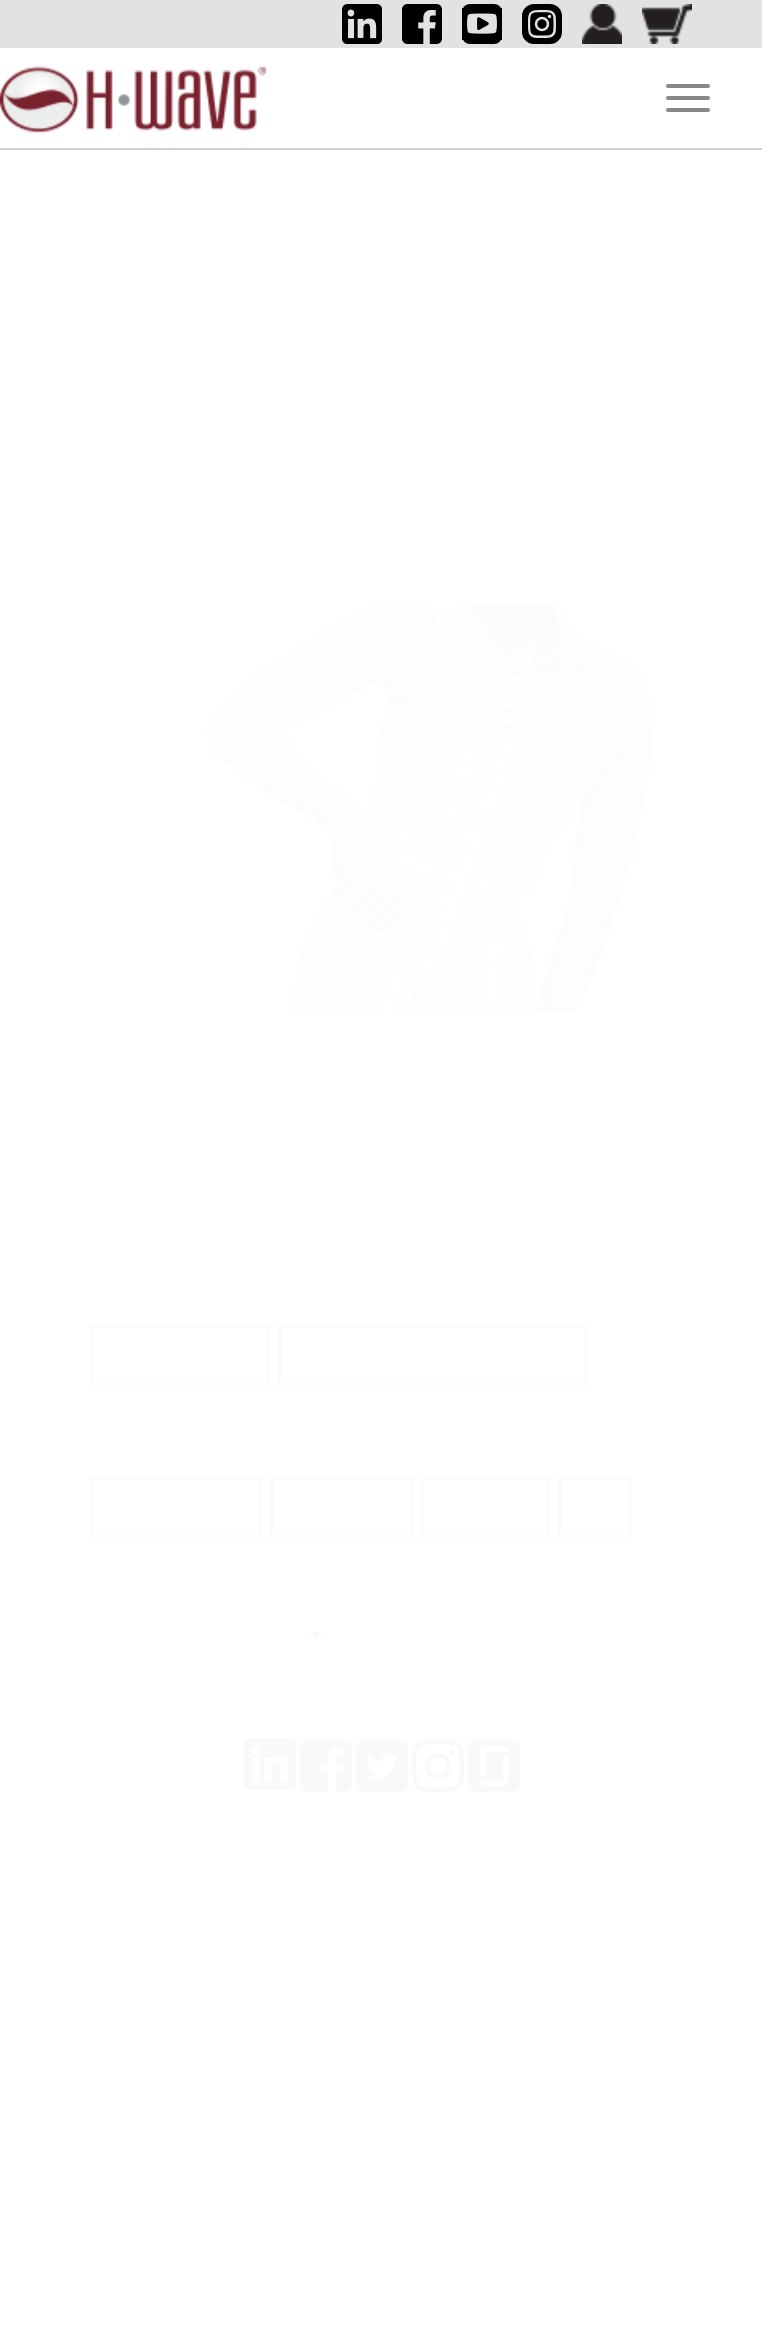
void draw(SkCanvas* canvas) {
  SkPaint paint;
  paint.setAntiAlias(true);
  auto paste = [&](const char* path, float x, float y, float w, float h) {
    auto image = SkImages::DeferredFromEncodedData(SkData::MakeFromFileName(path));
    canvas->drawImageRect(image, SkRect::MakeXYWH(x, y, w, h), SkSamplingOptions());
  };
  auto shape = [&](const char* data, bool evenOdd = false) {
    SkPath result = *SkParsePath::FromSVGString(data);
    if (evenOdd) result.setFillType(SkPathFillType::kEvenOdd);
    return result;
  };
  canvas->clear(0xffffffff);
  paint.setColor(0xffd0d0d0);
  canvas->drawRect(SkRect::MakeXYWH(0, 148, 762, 2), paint);
  paint.setColor(0xffe2e2e2);
  canvas->drawRect(SkRect::MakeXYWH(0, 0, 762, 48), paint);
  paste("img/1.png", 342, 4, 40, 40);
  paste("img/2.png", 402, 4, 40, 40);
  paint.setColor(0xff000000);
  canvas->drawRoundRect(SkRect::MakeXYWH(462, 4, 40, 40), 8, 8, paint);
  canvas->drawRect(SkRect::MakeXYWH(500, 8, 2, 32), paint);
  canvas->drawRect(SkRect::MakeXYWH(462, 8, 2, 32), paint);
  paste("img/3.png", 467, 13, 30, 21);
  canvas->drawRoundRect(SkRect::MakeXYWH(523, 5, 38, 38), 11, 11, paint);
  paint.setStroke(true);
  paint.setStrokeWidth(2);
  canvas->drawRoundRect(SkRect::MakeXYWH(523, 5, 38, 38), 11, 11, paint);
  paste("img/4.png", 528, 10, 28, 28);
  paste("img/5.png", 582, 4, 40, 40);
  paste("img/6.png", 642, 4, 50, 40);
  paste("img/7.png", 0, 65, 266, 69);
  paint.setStroke(false);
  paint.setColor(0xff888888);
  canvas->drawRoundRect(SkRect::MakeXYWH(666, 84, 44, 4), 2, 2, paint);
  canvas->drawRoundRect(SkRect::MakeXYWH(666, 96, 44, 4), 2, 2, paint);
  canvas->drawRoundRect(SkRect::MakeXYWH(666, 108, 44, 4), 2, 2, paint);
  paste("img/8.png", 60, 606, 600, 406);
  paint.setStroke(true);
  paint.setStrokeWidth(4);
  paint.setColor(0xfffcfcfc);
  canvas->drawRect(SkRect::MakeXYWH(92, 1326, 176, 58), paint);
  canvas->drawRect(SkRect::MakeXYWH(280, 1326, 306, 58), paint);
  canvas->drawRect(SkRect::MakeXYWH(92, 1478, 168, 58), paint);
  canvas->drawRect(SkRect::MakeXYWH(272, 1478, 140, 58), paint);
  canvas->drawRect(SkRect::MakeXYWH(422, 1478, 126, 58), paint);
  canvas->drawRect(SkRect::MakeXYWH(560, 1478, 70, 58), paint);
  paint.setStroke(false);
  paint.setColor(0xfffafafa);
  canvas->drawPath(shape("M308 1632H324L316 1640Z"), paint);
  paste("img/9.png", 244, 1738, 52, 53);
  paste("img/10.png", 300, 1740, 52, 52);
  paste("img/11.png", 356, 1740, 52, 52);
  paste("img/12.png", 412, 1740, 52, 52);
  paste("img/13.png", 468, 1740, 52, 52);
}
